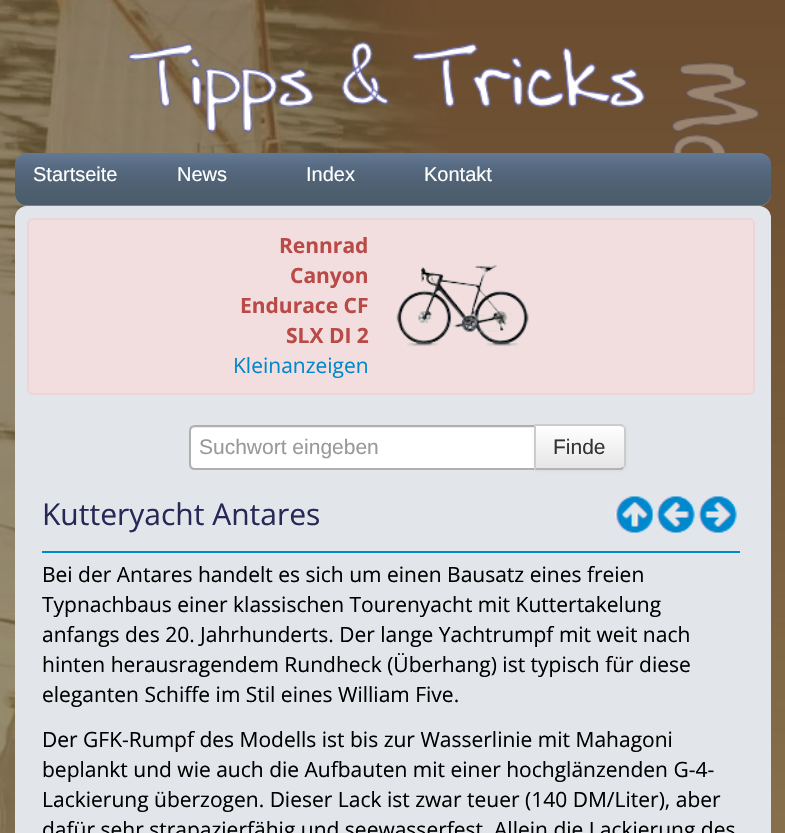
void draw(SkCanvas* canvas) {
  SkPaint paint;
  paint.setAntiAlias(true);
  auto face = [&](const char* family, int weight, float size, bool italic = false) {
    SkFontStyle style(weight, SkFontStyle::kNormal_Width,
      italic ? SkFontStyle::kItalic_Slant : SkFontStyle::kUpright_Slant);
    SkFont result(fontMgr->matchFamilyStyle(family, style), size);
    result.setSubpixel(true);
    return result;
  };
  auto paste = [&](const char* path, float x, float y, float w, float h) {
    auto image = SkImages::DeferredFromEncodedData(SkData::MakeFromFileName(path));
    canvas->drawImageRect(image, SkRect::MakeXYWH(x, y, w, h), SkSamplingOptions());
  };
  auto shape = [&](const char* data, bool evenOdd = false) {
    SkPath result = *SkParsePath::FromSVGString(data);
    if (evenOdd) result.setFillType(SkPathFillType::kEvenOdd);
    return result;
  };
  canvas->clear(0xffffffff);
  paste("img/1.png", 0, 0, 785, 833);
  paste("img/2.png", 0, 0, 448, 833);
  paste("img/3.png", 127, 41, 518, 92);
  paste("img/4.png", 670, 61, 91, 92);
  paint.setColor(0xff8192a9);
  canvas->drawRoundRect(SkRect::MakeXYWH(15, 153, 756, 53), 12, 12, paint);
  paste("img/5.png", 15, 153, 756, 53);
  paint.setColor(0xffe2e5ea);
  canvas->drawRoundRect(SkRect::MakeXYWH(21, 212, 744, 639), 6, 6, paint);
  paint.setStroke(true);
  paint.setStrokeWidth(12);
  canvas->drawRoundRect(SkRect::MakeXYWH(21, 212, 744, 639), 6, 6, paint);
  paint.setStroke(false);
  paint.setColor(0xfff2dede);
  canvas->drawRoundRect(SkRect::MakeXYWH(28, 219, 726, 175), 5, 5, paint);
  paint.setStroke(true);
  paint.setStrokeWidth(2);
  paint.setColor(0xffeed3d7);
  canvas->drawRoundRect(SkRect::MakeXYWH(28, 219, 726, 175), 5, 5, paint);
  paste("img/6.png", 396, 265, 133, 81);
  paint.setStroke(false);
  paint.setColor(0xffffffff);
  canvas->drawPath(shape("M195 425H536V470H195C191.5 470 189 467.5 189 464V431C189 427.5 191.5 425 195 425Z"), paint);
  paint.setColor(0xffececec);
  canvas->drawPath(shape("M195 428H534V426H196C194 426 192 428 191 430C192 429 194 428 195 428Z"), paint);
  paint.setStroke(true);
  paint.setColor(0xffafafaf);
  canvas->drawPath(shape("M195 426H535V469H195C192 469 190 467 190 464V431C190 428 192 426 195 426Z"), paint);
  paint.setStroke(false);
  paint.setColor(0x0d000000);
  paint.setMaskFilter(SkMaskFilter::MakeBlur(kNormal_SkBlurStyle, 1.5f));
  canvas->drawRoundRect(SkRect::MakeXYWH(534, 426, 92, 45), 6, 6, paint);
  paint.setMaskFilter(nullptr);
  paint.setColor(0xfff5f5f5);
  canvas->drawPath(shape("M534 425H620C623.5 425 626 427.5 626 431V464C626 467.5 623.5 470 620 470H534Z"), paint);
  canvas->save();
  canvas->clipPath(shape("M534 425H620C623.5 425 626 427.5 626 431V464C626 467.5 623.5 470 620 470H534Z"), true);
  {
    const SkColor colors[] = {0xffffffff, 0xffe6e6e6};
    const float stops[] = {0, 1};
    const SkPoint ends[] = {{580, 426}, {580, 468}};
    paint.setShader(SkGradientShader::MakeLinear(ends, colors, stops, 2, SkTileMode::kClamp));
    paint.setAlpha(255);
  }
  canvas->drawRect(SkRect::MakeXYWH(536, 426, 90, 42), paint);
  canvas->restore();
  paint.setShader(nullptr);
  paint.setColor(0xffcccccc);
  canvas->drawPath(shape("M536 426L534 424H622L624 426L623 427L620 426Z"), paint);
  canvas->drawPath(shape("M626 466L624 468L623 467C624 466 624 465 624 464V430C624 429 624 428 623 427L624 426L626 428Z"), paint);
  paint.setColor(0xffb3b3b3);
  canvas->drawPath(shape("M622 470H534L536 468H620L623 467L624 468Z"), paint);
  paint.setColor(0xffcccccc);
  canvas->drawPath(shape("M534 470L536 468V426L534 424Z"), paint);
  paste("img/7.png", 615, 496, 40, 37);
  paste("img/8.png", 656, 496, 39, 37);
  paste("img/9.png", 698, 496, 39, 37);
  paint.setColor(0xff0088cc);
  canvas->drawRect(SkRect::MakeXYWH(42, 551, 698, 2), paint);
  auto f0 = face("Liberation Sans", 400, 20);
  paint.setColor(0xffffffff);
  {
    const struct { const char* s; float x, y; } items[] = {
      {"Startseite", 33, 181},
      {"News", 177, 181},
      {"Index", 306, 181},
      {"Kontakt", 424, 181},
    };
    for (auto [s, x, y] : items) {
      canvas->drawString(s, x, y, f0, paint);
    }
  }
  auto f1 = face("Open Sans", 700, 21);
  paint.setColor(0xffb94a48);
  {
    const struct { const char* s; float x, y; } items[] = {
      {"Rennrad", 279, 253},
      {"Canyon", 290, 283},
      {"Endurace CF", 240, 313},
      {"SLX DI 2", 286, 343},
    };
    for (auto [s, x, y] : items) {
      canvas->drawString(s, x, y, f1, paint);
    }
  }
  auto f2 = face("Open Sans", 400, 21);
  paint.setColor(0xff0088cc);
  canvas->drawString("Kleinanzeigen", 233, 373, f2, paint);
  auto f3 = face("Liberation Sans", 400, 21);
  paint.setColor(0xff999999);
  canvas->drawString("Suchwort eingeben", 199, 454, f3, paint);
  paint.setColor(0xff333333);
  canvas->drawString("Finde", 553, 454, f3, paint);
  auto f4 = face("Open Sans", 400, 30);
  paint.setColor(0xff272855);
  canvas->drawString("Kutteryacht Antares", 42, 525, f4, paint);
  paint.setColor(0xff000000);
  {
    const struct { const char* s; float x, y; } items[] = {
      {"Bei der Antares handelt es sich um einen Bausatz eines freien", 42, 582},
      {"Typnachbaus einer klassischen Tourenyacht mit Kuttertakelung", 42, 612},
      {"anfangs des 20. Jahrhunderts. Der lange Yachtrumpf mit weit nach", 42, 642},
      {"hinten herausragendem Rundheck (Überhang) ist typisch für diese", 42, 672},
      {"eleganten Schiffe im Stil eines William Five.", 42, 702},
      {"Der GFK-Rumpf des Modells ist bis zur Wasserlinie mit Mahagoni", 42, 747},
      {"beplankt und wie auch die Aufbauten mit einer hochglänzenden G-4-", 42, 777},
      {"Lackierung überzogen. Dieser Lack ist zwar teuer (140 DM/Liter), aber", 42, 807},
      {"dafür sehr strapazierfähig und seewasserfest. Allein die Lackierung des", 42, 837},
    };
    for (auto [s, x, y] : items) {
      canvas->drawString(s, x, y, f2, paint);
    }
  }
}
